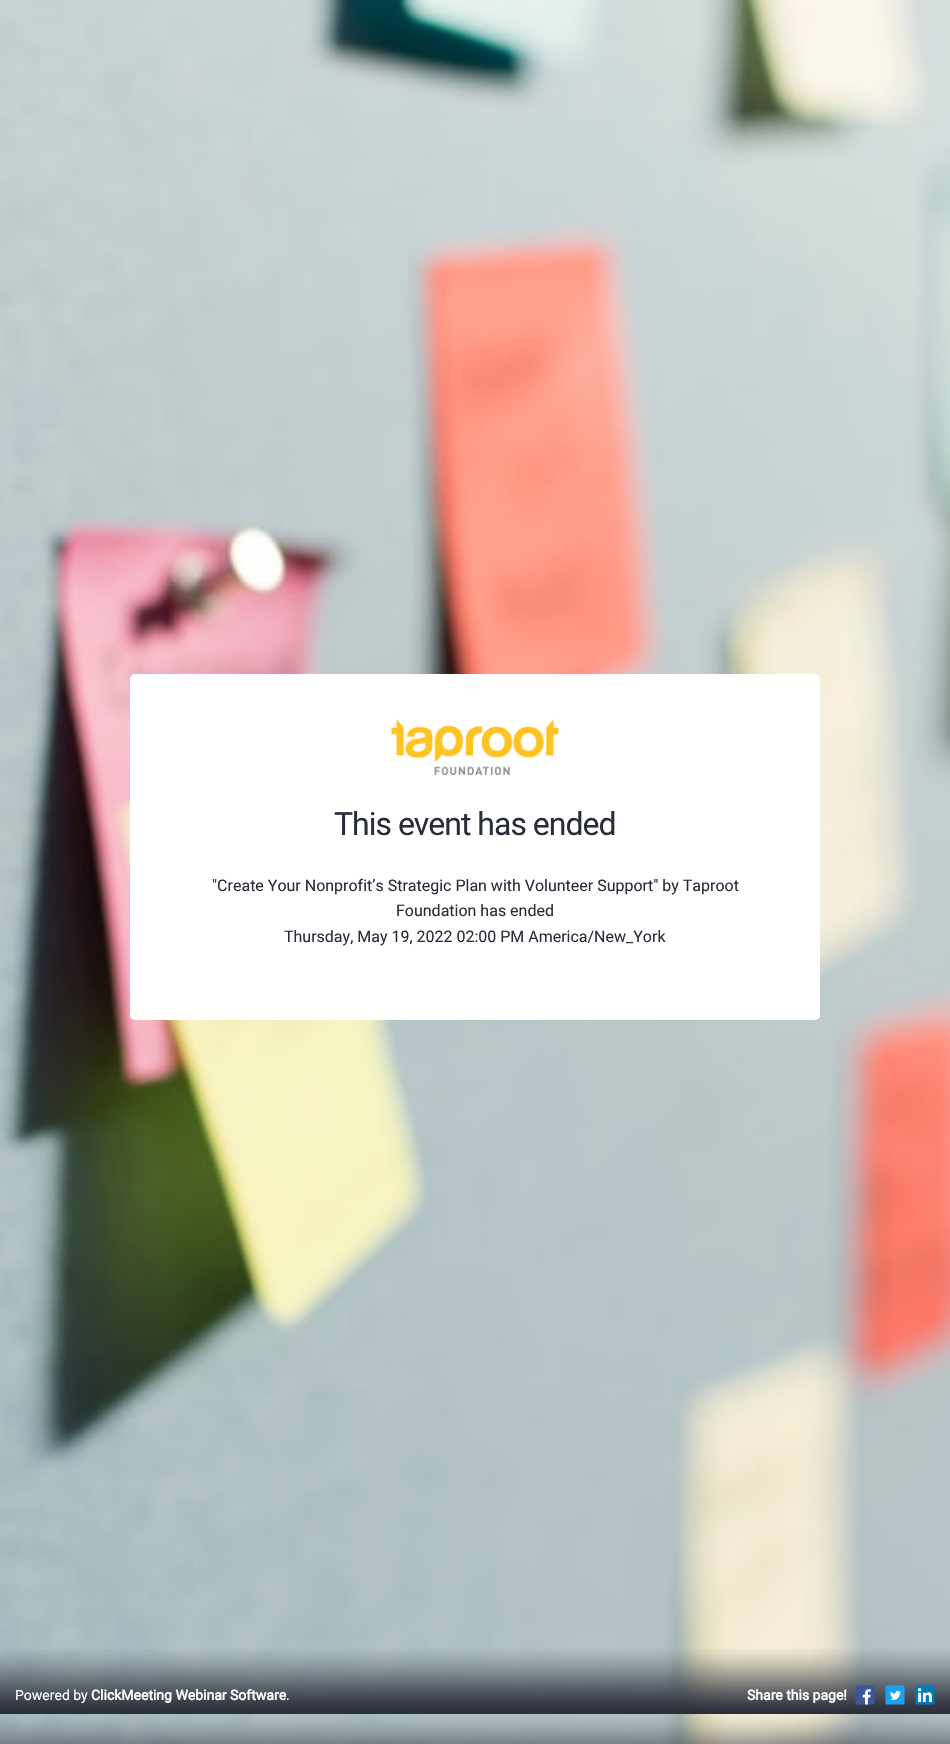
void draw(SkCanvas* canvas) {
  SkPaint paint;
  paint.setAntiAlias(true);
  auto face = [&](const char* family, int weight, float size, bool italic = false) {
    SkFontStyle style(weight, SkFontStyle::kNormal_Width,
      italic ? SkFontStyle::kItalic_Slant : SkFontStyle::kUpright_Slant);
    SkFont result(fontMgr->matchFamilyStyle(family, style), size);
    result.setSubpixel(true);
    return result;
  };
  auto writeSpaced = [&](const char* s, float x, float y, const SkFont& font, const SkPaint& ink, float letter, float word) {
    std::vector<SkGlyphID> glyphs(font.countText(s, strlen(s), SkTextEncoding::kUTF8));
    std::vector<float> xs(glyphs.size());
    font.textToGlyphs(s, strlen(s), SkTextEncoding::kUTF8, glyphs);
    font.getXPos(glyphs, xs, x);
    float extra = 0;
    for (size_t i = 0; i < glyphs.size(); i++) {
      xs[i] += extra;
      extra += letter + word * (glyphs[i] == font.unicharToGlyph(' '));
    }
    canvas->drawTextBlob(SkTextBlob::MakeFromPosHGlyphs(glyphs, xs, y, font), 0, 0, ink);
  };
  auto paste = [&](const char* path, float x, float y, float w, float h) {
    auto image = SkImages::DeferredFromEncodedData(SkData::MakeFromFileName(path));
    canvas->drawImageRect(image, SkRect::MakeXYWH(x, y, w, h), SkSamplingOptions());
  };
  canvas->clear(0xffffffff);
  paste("img/1.png", 0, 0, 950, 1744);
  paint.setColor(0xffffffff);
  canvas->drawRoundRect(SkRect::MakeXYWH(130, 674, 690, 346), 5, 5, paint);
  paste("img/2.png", 390, 719, 170, 57);
  paste("img/3.png", 0, 1649, 950, 95);
  paste("img/4.png", 855, 1685, 20, 20);
  paste("img/5.png", 885, 1685, 20, 20);
  paste("img/6.png", 915, 1685, 20, 20);
  auto f0 = face("Roboto", 400, 32);
  paint.setColor(0xff292d38);
  writeSpaced("This event has ended", 334, 835, f0, paint, -1, 0);
  auto f1 = face("Roboto", 400, 16);
  {
    const struct { const char* s; float x, y; } items[] = {
      {"\"Create Your Nonprofit’s Strategic Plan with Volunteer Support\" by Taproot", 212, 891},
      {"Foundation has ended", 396, 916},
      {"Thursday, May 19, 2022 02:00 PM America/New_York", 284, 942},
    };
    for (auto [s, x, y] : items) {
      canvas->drawString(s, x, y, f1, paint);
    }
  }
  auto f2 = face("Roboto", 400, 14);
  paint.setColor(0xffffffff);
  canvas->drawString("Powered by", 15, 1700, f2, paint);
  auto f3 = face("Roboto", 700, 14);
  canvas->drawString("ClickMeeting Webinar Software", 91, 1700, f3, paint);
  canvas->drawString(".", 286, 1700, f2, paint);
  canvas->drawString("Share this page!", 747, 1700, f3, paint);
}
